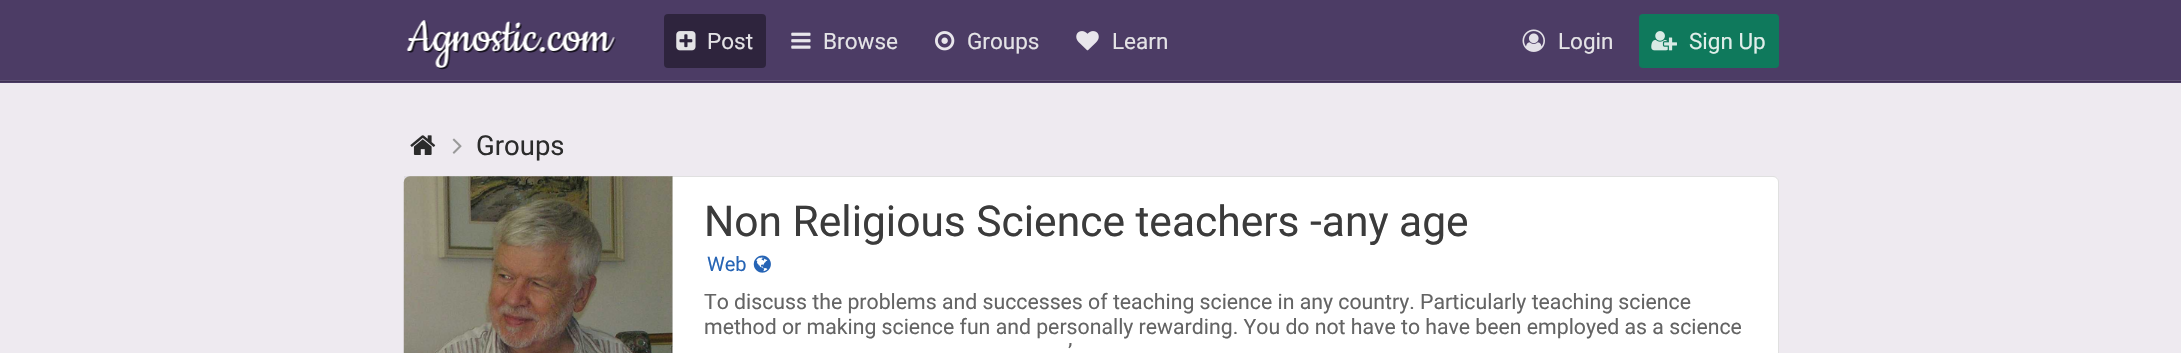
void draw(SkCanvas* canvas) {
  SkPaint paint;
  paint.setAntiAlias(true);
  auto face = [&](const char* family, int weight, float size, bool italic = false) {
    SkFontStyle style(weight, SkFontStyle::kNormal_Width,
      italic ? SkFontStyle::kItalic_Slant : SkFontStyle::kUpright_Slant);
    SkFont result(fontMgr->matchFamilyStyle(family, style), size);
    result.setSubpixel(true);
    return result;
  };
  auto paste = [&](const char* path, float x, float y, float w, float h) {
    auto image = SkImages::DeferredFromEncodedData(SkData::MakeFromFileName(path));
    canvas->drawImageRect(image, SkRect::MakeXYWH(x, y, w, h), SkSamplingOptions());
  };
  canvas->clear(0xffeeeaf0);
  {
    const struct { float x, y, w, h; SkColor color; } items[] = {
      {0, 0, 2181, 83, 0xff4c3c65},
      {0, 80, 2181, 1, 0xff5e5074},
      {0, 81, 2181, 1, 0xff3e3152},
    };
    for (auto [x, y, w, h, color] : items) {
      paint.setColor(color);
      canvas->drawRect(SkRect::MakeXYWH(x, y, w, h), paint);
    }
  }
  paste("img/1.png", 406, 20, 210, 50);
  paint.setColor(0xff2e243d);
  canvas->drawRoundRect(SkRect::MakeXYWH(664, 14, 102, 54), 4, 4, paint);
  paste("img/2.png", 676, 31, 20, 20);
  paste("img/3.png", 791, 32, 20, 17);
  paste("img/4.png", 935, 31, 20, 20);
  paste("img/5.png", 1076, 31, 23, 20);
  paste("img/6.png", 1522, 29, 23, 23);
  paint.setColor(0xff0f795c);
  canvas->drawRoundRect(SkRect::MakeXYWH(1639, 14, 140, 54), 4, 4, paint);
  paste("img/7.png", 1651, 31, 26, 20);
  paste("img/8.png", 410, 135, 26, 20);
  paste("img/9.png", 452, 138, 10, 16);
  paint.setColor(0xffffffff);
  canvas->drawRoundRect(SkRect::MakeXYWH(404, 176, 1375, 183), 6, 6, paint);
  paint.setStroke(true);
  paint.setStrokeWidth(1);
  paint.setColor(0x1f000000);
  canvas->drawRoundRect(SkRect::MakeXYWH(404.5f, 176.5f, 1374, 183), 5.5f, 5.5f, paint);
  paint.setStroke(false);
  paint.setColor(0x0d000000);
  canvas->drawRect(SkRect::MakeXYWH(404, 176, 269, 177), paint);
  paste("img/10.png", 403, 176, 270, 177);
  paste("img/11.png", 753, 255, 18, 18);
  auto f0 = face("Roboto", 400, 22.5f);
  paint.setColor(0xffe4e3e6);
  {
    const struct { const char* s; float x, y; } items[] = {
      {"Post", 707, 49},
      {"Browse", 823, 49},
      {"Groups", 967, 49},
      {"Learn", 1112, 49},
      {"Login", 1558, 49},
    };
    for (auto [s, x, y] : items) {
      canvas->drawString(s, x, y, f0, paint);
    }
  }
  paint.setColor(0xffe0eeea);
  canvas->drawString("Sign Up", 1689, 49, f0, paint);
  auto f1 = face("Roboto", 400, 27.5f);
  paint.setColor(0xff2b2b2b);
  canvas->drawString("Groups", 476, 155, f1, paint);
  auto f2 = face("Roboto", 400, 42.5f);
  paint.setColor(0xff3b3b3b);
  canvas->drawString("Non Religious Science teachers -any age", 704, 236, f2, paint);
  auto f3 = face("Roboto", 400, 20);
  paint.setColor(0xff2664b5);
  canvas->drawString("Web", 707, 271, f3, paint);
  auto f4 = face("Roboto", 400, 21.25f);
  paint.setColor(0xff646464);
  {
    const struct { const char* s; float x, y; } items[] = {
      {"To discuss the problems and successes of teaching science in any country. Particularly teaching science", 704, 309},
      {"method or making science fun and personally rewarding. You do not have to have been employed as a science", 704, 334},
      {"’", 1068, 359},
    };
    for (auto [s, x, y] : items) {
      canvas->drawString(s, x, y, f4, paint);
    }
  }
}
